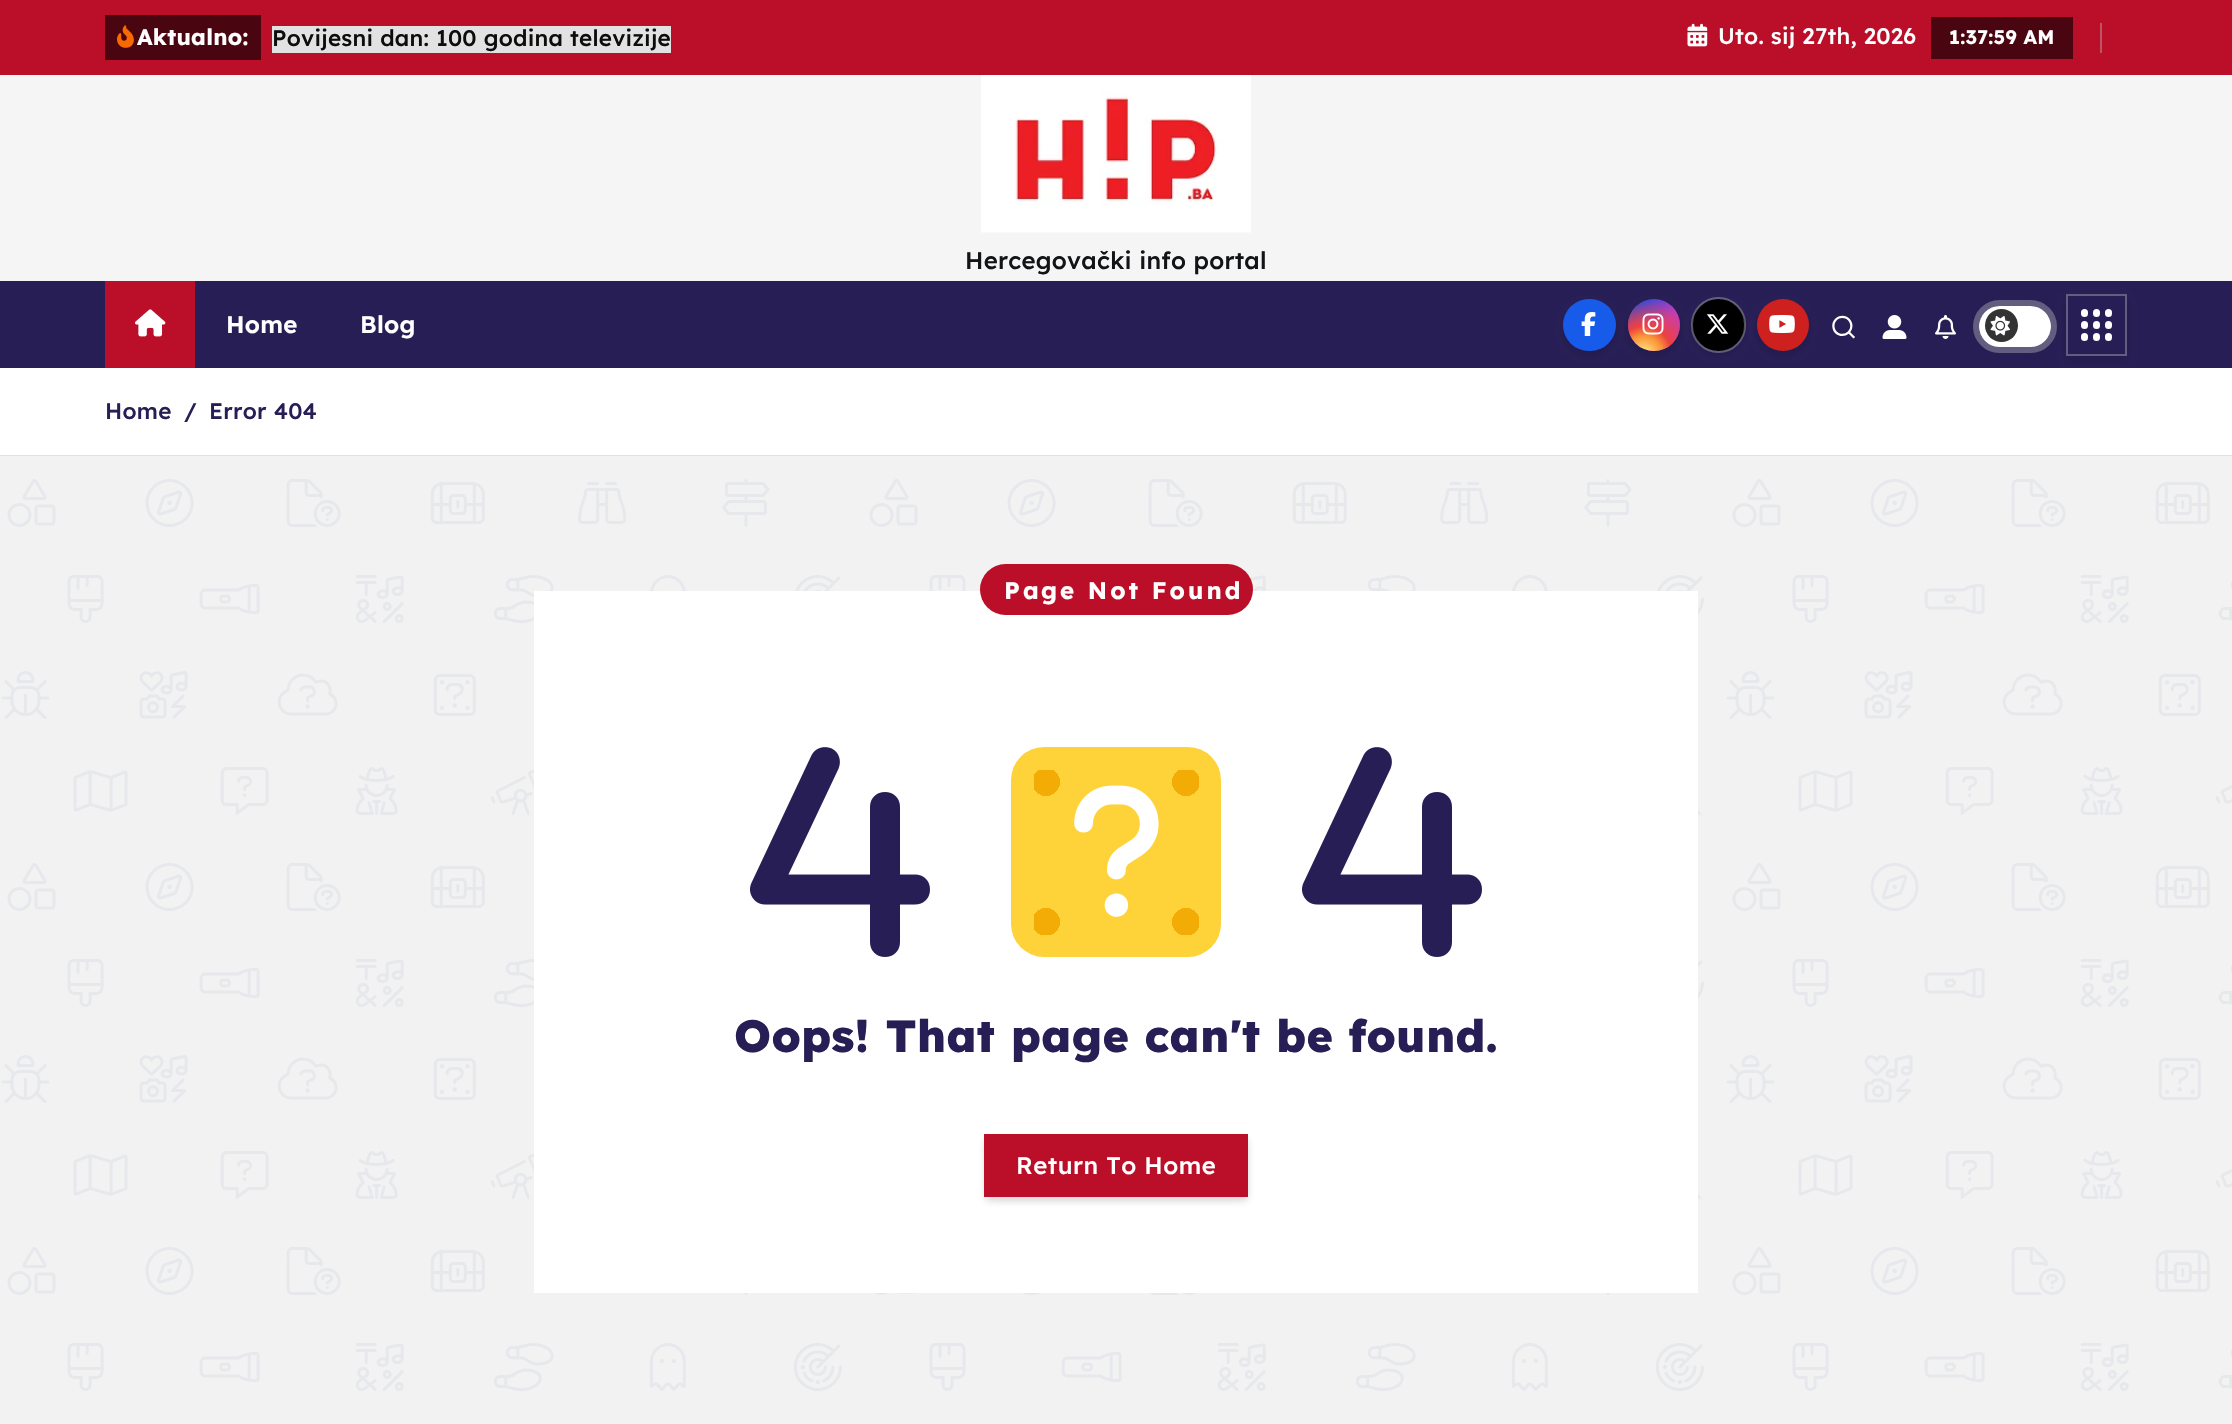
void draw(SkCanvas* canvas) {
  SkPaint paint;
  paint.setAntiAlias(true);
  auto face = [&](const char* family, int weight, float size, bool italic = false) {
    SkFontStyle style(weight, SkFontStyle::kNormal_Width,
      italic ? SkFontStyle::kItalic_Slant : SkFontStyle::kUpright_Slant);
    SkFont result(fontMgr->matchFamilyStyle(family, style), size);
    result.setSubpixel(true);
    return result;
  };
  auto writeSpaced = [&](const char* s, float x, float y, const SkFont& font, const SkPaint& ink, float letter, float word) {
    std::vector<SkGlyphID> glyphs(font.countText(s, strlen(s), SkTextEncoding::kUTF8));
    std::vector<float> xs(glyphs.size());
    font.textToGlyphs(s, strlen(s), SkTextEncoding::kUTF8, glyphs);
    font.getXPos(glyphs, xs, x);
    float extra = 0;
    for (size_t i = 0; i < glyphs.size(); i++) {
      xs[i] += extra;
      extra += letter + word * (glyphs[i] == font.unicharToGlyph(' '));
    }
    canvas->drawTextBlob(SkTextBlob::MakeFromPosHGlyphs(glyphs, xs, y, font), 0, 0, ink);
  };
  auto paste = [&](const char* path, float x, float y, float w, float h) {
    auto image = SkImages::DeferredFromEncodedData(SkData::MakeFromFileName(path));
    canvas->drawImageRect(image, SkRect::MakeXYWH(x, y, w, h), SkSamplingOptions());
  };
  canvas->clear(0xfff5f5f5);
  paint.setColor(0xffba0e29);
  canvas->drawRect(SkRect::MakeXYWH(0, 0, 2232, 75), paint);
  paint.setColor(0xff4a0610);
  canvas->drawRect(SkRect::MakeXYWH(105, 15, 156, 45), paint);
  paste("img/1.png", 117, 25, 17, 23);
  paint.setColor(0xffe2e2e2);
  canvas->drawRect(SkRect::MakeXYWH(272, 26, 399, 27), paint);
  paste("img/2.png", 1687, 23, 21, 24);
  paint.setColor(0xff4a0610);
  canvas->drawRect(SkRect::MakeXYWH(1931, 17, 142, 42), paint);
  paint.setColor(0xffbb5464);
  canvas->drawRect(SkRect::MakeXYWH(2100, 23, 2, 30), paint);
  paste("img/3.png", 981, 75, 270, 158);
  paint.setColor(0xff271e55);
  canvas->drawRect(SkRect::MakeXYWH(0, 281, 2232, 87), paint);
  paint.setColor(0xffba0e29);
  canvas->drawRect(SkRect::MakeXYWH(105, 281, 90, 87), paint);
  paste("img/4.png", 135, 309, 31, 28);
  paint.setColor(0x33070a19);
  paint.setMaskFilter(SkMaskFilter::MakeBlur(kNormal_SkBlurStyle, 4));
  canvas->drawRoundRect(SkRect::MakeXYWH(1565, 305, 49, 49), 24.5f, 24.5f, paint);
  paint.setMaskFilter(nullptr);
  paint.setColor(0xff175beb);
  canvas->drawRoundRect(SkRect::MakeXYWH(1563, 299, 53, 52), 26, 26, paint);
  paste("img/5.png", 1581, 312, 15, 24);
  paint.setColor(0x33070a19);
  paint.setMaskFilter(SkMaskFilter::MakeBlur(kNormal_SkBlurStyle, 4));
  canvas->drawRoundRect(SkRect::MakeXYWH(1629, 305, 50, 49), 24.5f, 24.5f, paint);
  paint.setMaskFilter(nullptr);
  {
    const SkColor colors[] = {0xff234bd7, 0xffc33cbe};
    const float stops[] = {0.12f, 0.58f};
    const SkPoint ends[] = {{1628, 299}, {1680, 351}};
    paint.setShader(SkGradientShader::MakeLinear(ends, colors, stops, 2, SkTileMode::kClamp));
    paint.setAlpha(255);
  }
  canvas->drawCircle(1654, 325, 26, paint);
  {
    const SkColor colors[] = {0xffffe17d, 0xffffcd69, 0xfffa9137, 0xffeb4141, 0x00eb4141};
    const float stops[] = {0, 0.1f, 0.28f, 0.42f, 0.82f};
    paint.setShader(SkGradientShader::MakeRadial({1644, 354}, 66, colors, stops, 5, SkTileMode::kClamp));
    paint.setAlpha(255);
  }
  canvas->drawCircle(1654, 325, 26, paint);
  paste("img/6.png", 1642, 313, 22, 22);
  paint.setShader(nullptr);
  paint.setColor(0x33070a19);
  paint.setMaskFilter(SkMaskFilter::MakeBlur(kNormal_SkBlurStyle, 4));
  canvas->drawRoundRect(SkRect::MakeXYWH(1694, 305, 49, 49), 24.5f, 24.5f, paint);
  paint.setMaskFilter(nullptr);
  paint.setColor(0xff000000);
  canvas->drawRoundRect(SkRect::MakeXYWH(1692, 299, 53, 52), 26, 26, paint);
  paste("img/7.png", 1706, 314, 23, 20);
  paint.setStroke(true);
  paint.setStrokeWidth(2);
  paint.setColor(0x66bdbdbd);
  canvas->drawRoundRect(SkRect::MakeXYWH(1692, 298, 53, 54), 26.5f, 26.5f, paint);
  paint.setStroke(false);
  paint.setColor(0x33070a19);
  paint.setMaskFilter(SkMaskFilter::MakeBlur(kNormal_SkBlurStyle, 4));
  canvas->drawRoundRect(SkRect::MakeXYWH(1758, 305, 50, 49), 24.5f, 24.5f, paint);
  paint.setMaskFilter(nullptr);
  paint.setColor(0xffcd201f);
  canvas->drawCircle(1783, 325, 26, paint);
  paste("img/8.png", 1769, 315, 26, 18);
  paste("img/9.png", 1832, 315, 23, 24);
  paste("img/10.png", 1882, 315, 25, 24);
  paste("img/11.png", 1935, 315, 21, 24);
  paint.setStroke(true);
  paint.setStrokeWidth(6);
  paint.setColor(0xff635e7f);
  canvas->drawRoundRect(SkRect::MakeXYWH(1976, 303, 78, 47), 23.5f, 23.5f, paint);
  paint.setStroke(false);
  paint.setColor(0xffffffff);
  canvas->drawRoundRect(SkRect::MakeXYWH(1979, 306, 72, 41), 20.5f, 20.5f, paint);
  paint.setColor(0xff333333);
  canvas->drawCircle(2001.5f, 325.5f, 16.5f, paint);
  paste("img/12.png", 1990, 316, 20, 20);
  paint.setColor(0xffffffff);
  canvas->drawRect(SkRect::MakeXYWH(0, 368, 2232, 87), paint);
  paint.setColor(0x33070a19);
  paint.setMaskFilter(SkMaskFilter::MakeBlur(kNormal_SkBlurStyle, 4));
  canvas->drawRect(SkRect::MakeXYWH(2067, 300, 59, 59), paint);
  paint.setMaskFilter(nullptr);
  paint.setColor(0xff271e55);
  canvas->drawRect(SkRect::MakeXYWH(2068, 297, 57, 57), paint);
  paint.setStroke(true);
  paint.setStrokeWidth(2);
  paint.setColor(0xff635e7f);
  canvas->drawRect(SkRect::MakeXYWH(2067, 295, 59, 60), paint);
  paint.setStroke(false);
  paint.setColor(0xffffffff);
  canvas->drawRoundRect(SkRect::MakeXYWH(2081, 309, 7, 8), 3.5f, 3.5f, paint);
  canvas->drawRoundRect(SkRect::MakeXYWH(2093, 309, 7, 8), 3.5f, 3.5f, paint);
  canvas->drawRoundRect(SkRect::MakeXYWH(2105, 309, 7, 8), 3.5f, 3.5f, paint);
  canvas->drawRoundRect(SkRect::MakeXYWH(2081, 321, 7, 8), 3.5f, 3.5f, paint);
  canvas->drawRoundRect(SkRect::MakeXYWH(2093, 321, 7, 8), 3.5f, 3.5f, paint);
  canvas->drawRoundRect(SkRect::MakeXYWH(2105, 321, 7, 8), 3.5f, 3.5f, paint);
  canvas->drawRoundRect(SkRect::MakeXYWH(2081, 333, 7, 8), 3.5f, 3.5f, paint);
  canvas->drawRoundRect(SkRect::MakeXYWH(2093, 333, 7, 8), 3.5f, 3.5f, paint);
  canvas->drawRoundRect(SkRect::MakeXYWH(2105, 333, 7, 8), 3.5f, 3.5f, paint);
  paint.setColor(0xfff2f2f2);
  canvas->drawRect(SkRect::MakeXYWH(0, 456, 2232, 968), paint);
  paint.setColor(0xffe1e1e1);
  canvas->drawRect(SkRect::MakeXYWH(0, 455, 2232, 1), paint);
  paste("img/13.png", 1, 479, 2231, 912);
  paint.setColor(0xffffffff);
  canvas->drawRect(SkRect::MakeXYWH(534, 591, 1164, 702), paint);
  paint.setColor(0xffba0e29);
  canvas->drawRoundRect(SkRect::MakeXYWH(980, 564, 273, 51), 25.5f, 25.5f, paint);
  paste("img/14.png", 750, 747, 180, 210);
  paint.setColor(0xfffed33a);
  canvas->drawRoundRect(SkRect::MakeXYWH(1011, 747, 210, 210), 33, 33, paint);
  {
    const SkColor colors[] = {0xfff3ab06, 0xfffed33a};
    const float stops[] = {1, 1};
    paint.setShader(SkGradientShader::MakeRadial({1186, 922}, 14, colors, stops, 2, SkTileMode::kClamp));
    paint.setAlpha(255);
  }
  canvas->drawRect(SkRect::MakeXYWH(1172, 908, 27, 27), paint);
  {
    const SkColor colors[] = {0xfff3ab06, 0xfffed33a};
    const float stops[] = {1, 1};
    paint.setShader(SkGradientShader::MakeRadial({1046, 922}, 14, colors, stops, 2, SkTileMode::kClamp));
    paint.setAlpha(255);
  }
  canvas->drawRect(SkRect::MakeXYWH(1034, 908, 26, 27), paint);
  {
    const SkColor colors[] = {0xfff3ab06, 0xfffed33a};
    const float stops[] = {1, 1};
    paint.setShader(SkGradientShader::MakeRadial({1046, 782}, 14, colors, stops, 2, SkTileMode::kClamp));
    paint.setAlpha(255);
  }
  canvas->drawRect(SkRect::MakeXYWH(1034, 770, 26, 26), paint);
  {
    const SkColor colors[] = {0xfff3ab06, 0xfffed33a};
    const float stops[] = {1, 1};
    paint.setShader(SkGradientShader::MakeRadial({1186, 782}, 14, colors, stops, 2, SkTileMode::kClamp));
    paint.setAlpha(255);
  }
  canvas->drawRect(SkRect::MakeXYWH(1172, 770, 27, 26), paint);
  paste("img/15.png", 1074, 785, 85, 132);
  paste("img/14.png", 1302, 747, 180, 210);
  paint.setShader(nullptr);
  paint.setColor(0x33070a19);
  paint.setMaskFilter(SkMaskFilter::MakeBlur(kNormal_SkBlurStyle, 4));
  canvas->drawRect(SkRect::MakeXYWH(986, 1140, 261, 60), paint);
  paint.setMaskFilter(nullptr);
  paint.setColor(0xffba0e29);
  canvas->drawRect(SkRect::MakeXYWH(984, 1134, 264, 63), paint);
  auto f0 = face("Lexend Deca", 700, 22.5f);
  paint.setColor(0xffffffff);
  writeSpaced("Aktualno:", 137, 45, f0, paint, 0.25f, 0);
  auto f1 = face("Lexend Deca", 500, 22.5f);
  paint.setColor(0xff0d0d0d);
  writeSpaced("Povijesni dan: 100 godina televizije", 272, 46, f1, paint, 0.25f, 0);
  paint.setColor(0xffffffff);
  writeSpaced("Uto. sij 27th, 2026", 1718, 44, f1, paint, 0.25f, 0);
  auto f2 = face("Lexend Deca", 700, 19.5f);
  writeSpaced("1:37:59 AM", 1949, 44, f2, paint, 0.25f, 0);
  auto f3 = face("Lexend Deca", 500, 24);
  paint.setColor(0xff121418);
  writeSpaced("Hercegovački info portal", 965, 269, f3, paint, 0.25f, 0);
  auto f4 = face("Lexend Deca", 600, 24);
  paint.setColor(0xffffffff);
  writeSpaced("Home", 226, 333, f4, paint, 0.25f, 0);
  writeSpaced("Blog", 360, 333, f4, paint, 0.25f, 0);
  paint.setColor(0xff271e55);
  {
    const struct { const char* s; float x, y; } items[] = {
      {"Home", 105, 419},
      {"/", 184, 419},
      {"Error 404", 209, 419},
    };
    for (auto [s, x, y] : items) {
      writeSpaced(s, x, y, f1, paint, 0.25f, 0);
    }
  }
  auto f5 = face("Lexend Deca", 700, 24);
  paint.setColor(0xffffffff);
  writeSpaced("Pa", 1004, 599, f5, paint, 3, 0);
  writeSpaced("ge Not Found", 1041, 599, f5, paint, 3, 0);
  auto f6 = face("Lexend Deca", 800, 45);
  paint.setColor(0xff271e55);
  writeSpaced("Oops! That page can't be found.", 734, 1052, f6, paint, 0.25f, 0);
  paint.setColor(0xffffffff);
  writeSpaced("Return To Home", 1016, 1174, f3, paint, 0.5f, 0);
}
